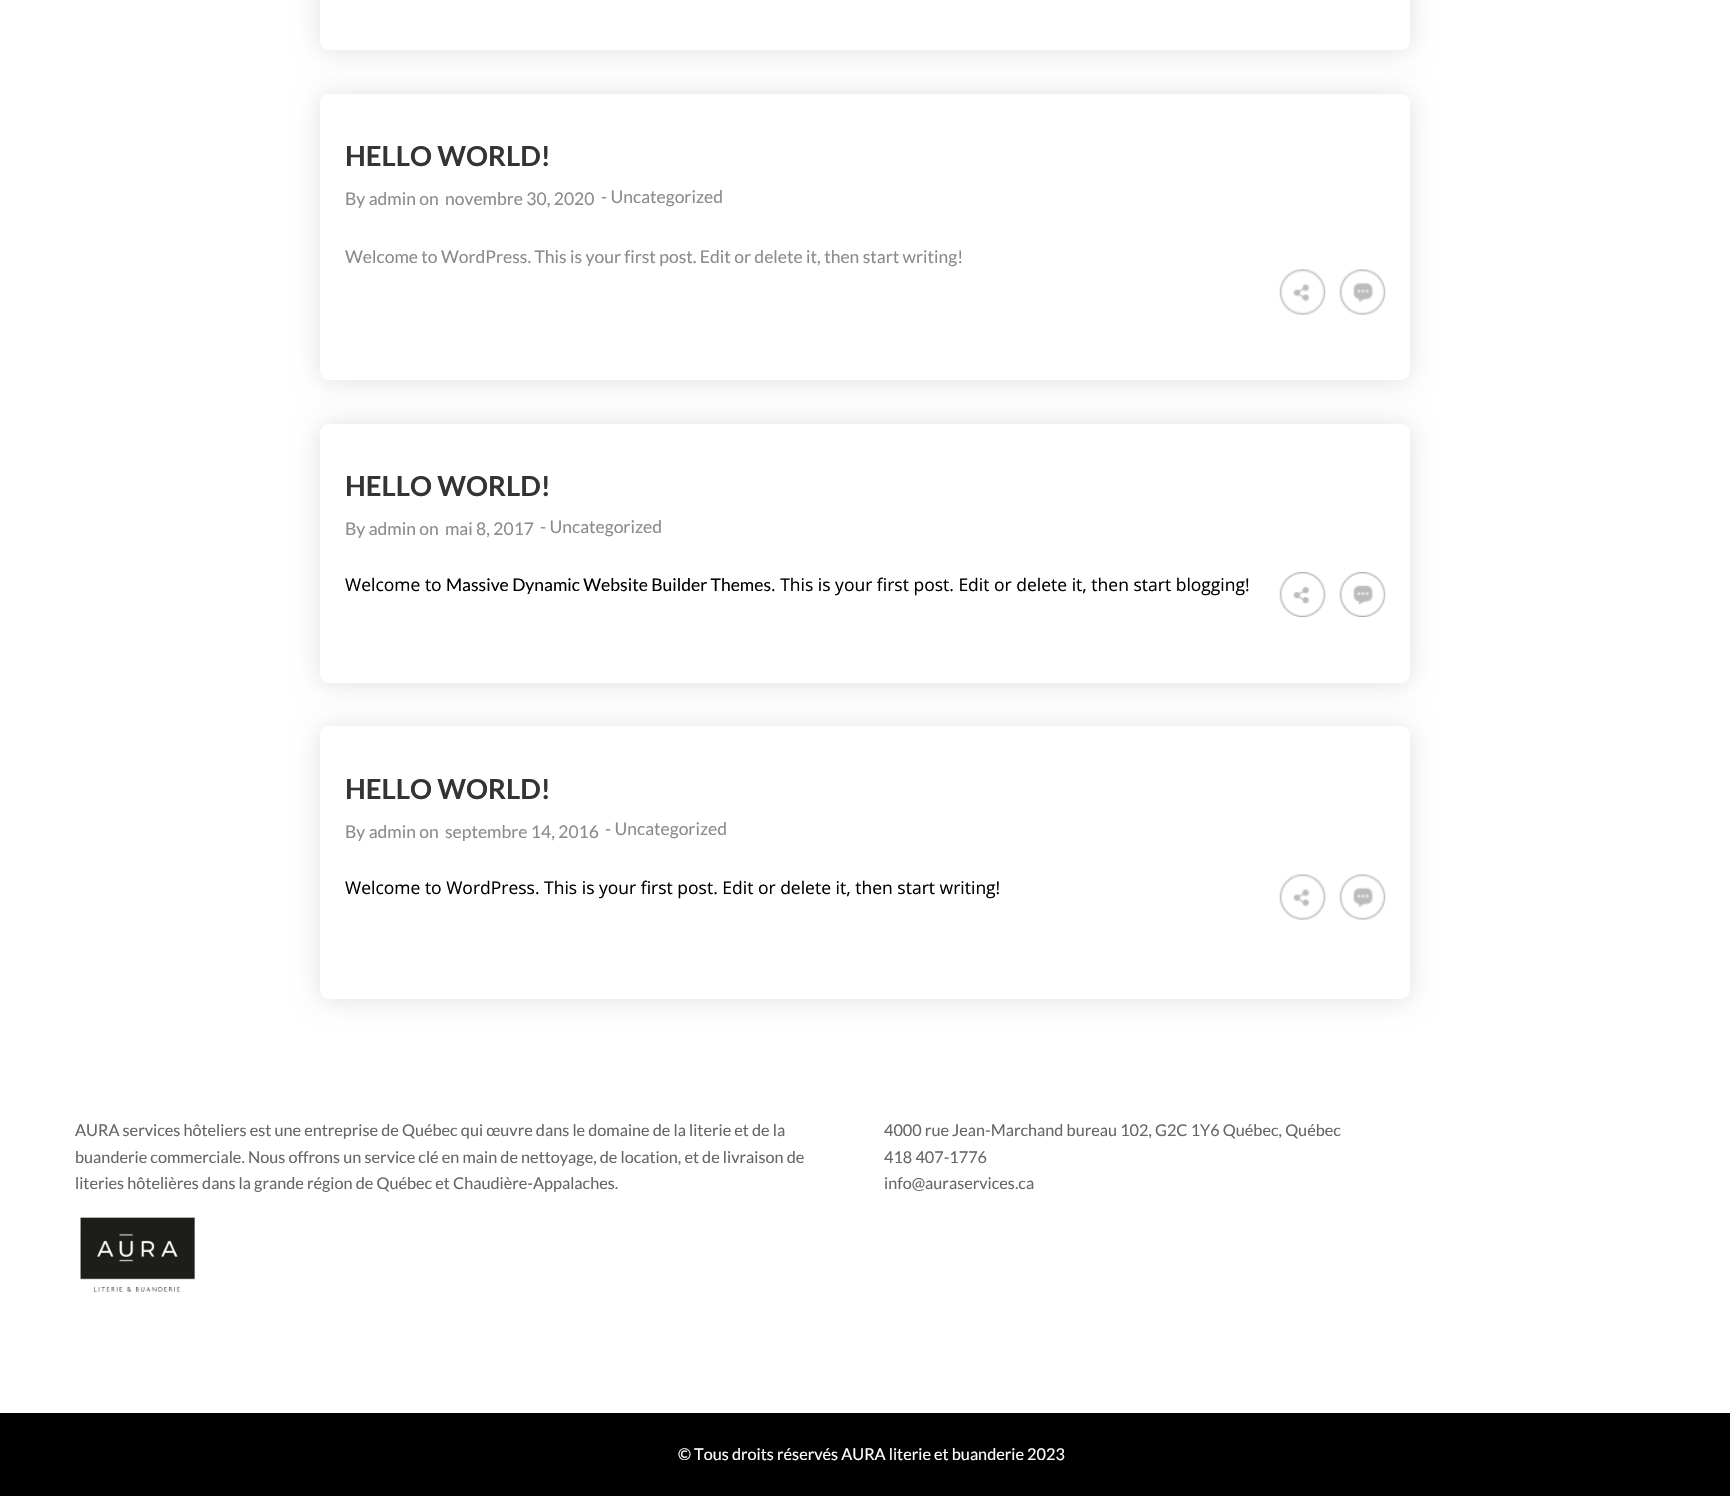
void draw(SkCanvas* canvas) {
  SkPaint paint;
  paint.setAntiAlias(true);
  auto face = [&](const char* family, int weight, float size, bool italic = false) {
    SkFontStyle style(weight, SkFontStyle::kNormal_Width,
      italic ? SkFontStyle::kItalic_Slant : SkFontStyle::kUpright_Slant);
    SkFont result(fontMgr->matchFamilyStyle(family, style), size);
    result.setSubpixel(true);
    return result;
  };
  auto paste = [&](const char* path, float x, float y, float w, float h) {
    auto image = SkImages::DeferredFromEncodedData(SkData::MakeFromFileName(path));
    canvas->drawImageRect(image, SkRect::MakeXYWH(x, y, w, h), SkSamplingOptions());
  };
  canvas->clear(0xffffffff);
  paint.setColor(0x1f000000);
  paint.setMaskFilter(SkMaskFilter::MakeBlur(kNormal_SkBlurStyle, 13));
  canvas->drawRoundRect(SkRect::MakeXYWH(320, -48, 1090, 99), 9, 9, paint);
  paint.setMaskFilter(nullptr);
  paint.setColor(0xffffffff);
  canvas->drawRoundRect(SkRect::MakeXYWH(320, -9, 1090, 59), 9, 9, paint);
  paint.setColor(0x1f000000);
  paint.setMaskFilter(SkMaskFilter::MakeBlur(kNormal_SkBlurStyle, 13));
  canvas->drawRoundRect(SkRect::MakeXYWH(320, 95, 1090, 286), 9, 9, paint);
  paint.setMaskFilter(nullptr);
  paint.setColor(0xffffffff);
  canvas->drawRoundRect(SkRect::MakeXYWH(320, 94, 1090, 286), 9, 9, paint);
  paste("img/1.png", 1279, 269, 47, 46);
  paste("img/2.png", 1339, 269, 47, 46);
  paint.setColor(0x1f000000);
  paint.setMaskFilter(SkMaskFilter::MakeBlur(kNormal_SkBlurStyle, 13));
  canvas->drawRoundRect(SkRect::MakeXYWH(320, 425, 1090, 259), 9, 9, paint);
  paint.setMaskFilter(nullptr);
  paint.setColor(0xffffffff);
  canvas->drawRoundRect(SkRect::MakeXYWH(320, 424, 1090, 259), 9, 9, paint);
  paste("img/3.png", 1279, 572, 47, 45);
  paste("img/4.png", 1339, 572, 47, 45);
  paint.setColor(0x1f000000);
  paint.setMaskFilter(SkMaskFilter::MakeBlur(kNormal_SkBlurStyle, 13));
  canvas->drawRoundRect(SkRect::MakeXYWH(320, 728, 1090, 272), 9, 9, paint);
  paint.setMaskFilter(nullptr);
  paint.setColor(0xffffffff);
  canvas->drawRoundRect(SkRect::MakeXYWH(320, 726, 1090, 273), 9, 9, paint);
  paste("img/1.png", 1279, 874, 47, 46);
  paste("img/2.png", 1339, 874, 47, 46);
  paste("img/5.png", 80, 1217, 115, 75);
  paint.setColor(0xff000000);
  canvas->drawRect(SkRect::MakeXYWH(0, 1413, 1730, 83), paint);
  auto f0 = face("Lato", 700, 27.5f);
  paint.setColor(0xff343434);
  canvas->drawString("HELLO WORLD!", 345, 166, f0, paint);
  auto f1 = face("Lato", 400, 17.5f);
  paint.setColor(0xff8b8b8b);
  {
    const struct { const char* s; float x, y; } items[] = {
      {"By admin on", 345, 205},
      {"novembre 30, 2020", 445, 205},
      {"- Uncategorized", 601, 203},
      {"Welcome to WordPress. This is your first post. Edit or delete it, then start writing!", 345, 263},
    };
    for (auto [s, x, y] : items) {
      canvas->drawString(s, x, y, f1, paint);
    }
  }
  paint.setColor(0xff343434);
  canvas->drawString("HELLO WORLD!", 345, 496, f0, paint);
  paint.setColor(0xff8b8b8b);
  {
    const struct { const char* s; float x, y; } items[] = {
      {"By admin on", 345, 535},
      {"mai 8, 2017", 445, 535},
      {"- Uncategorized", 540, 533},
    };
    for (auto [s, x, y] : items) {
      canvas->drawString(s, x, y, f1, paint);
    }
  }
  auto f2 = face("Open Sans", 400, 17.5f);
  paint.setColor(0xff000000);
  canvas->drawString("Welcome to", 345, 591, f2, paint);
  canvas->drawString("Massive Dynamic Website Builder Themes", 446, 591, f1, paint);
  canvas->drawString(". This is your first post. Edit or delete it, then start blogging!", 771, 591, f2, paint);
  paint.setColor(0xff343434);
  canvas->drawString("HELLO WORLD!", 345, 799, f0, paint);
  paint.setColor(0xff8b8b8b);
  {
    const struct { const char* s; float x, y; } items[] = {
      {"By admin on", 345, 838},
      {"septembre 14, 2016", 445, 838},
      {"- Uncategorized", 605, 835},
    };
    for (auto [s, x, y] : items) {
      canvas->drawString(s, x, y, f1, paint);
    }
  }
  paint.setColor(0xff000000);
  canvas->drawString("Welcome to WordPress. This is your first post. Edit or delete it, then start writing!", 345, 894, f2, paint);
  auto f3 = face("Lato", 400, 16.25f);
  paint.setColor(0xff666666);
  {
    const struct { const char* s; float x, y; } items[] = {
      {"AURA services hôteliers est une entreprise de Québec qui œuvre dans le domaine de la literie et de la", 75, 1136},
      {"buanderie commerciale. Nous offrons un service clé en main de nettoyage, de location, et de livraison de", 75, 1163},
      {"literies hôtelières dans la grande région de Québec et Chaudière-Appalaches.", 75, 1189},
      {"4000 rue Jean-Marchand bureau 102, G2C 1Y6 Québec, Québec", 884, 1136},
      {"418 407-1776", 884, 1163},
      {"info@auraservices.ca", 884, 1189},
    };
    for (auto [s, x, y] : items) {
      canvas->drawString(s, x, y, f3, paint);
    }
  }
  paint.setColor(0xffffffff);
  canvas->drawString("© Tous droits réservés AURA literie et buanderie 2023", 678, 1460, f3, paint);
}
